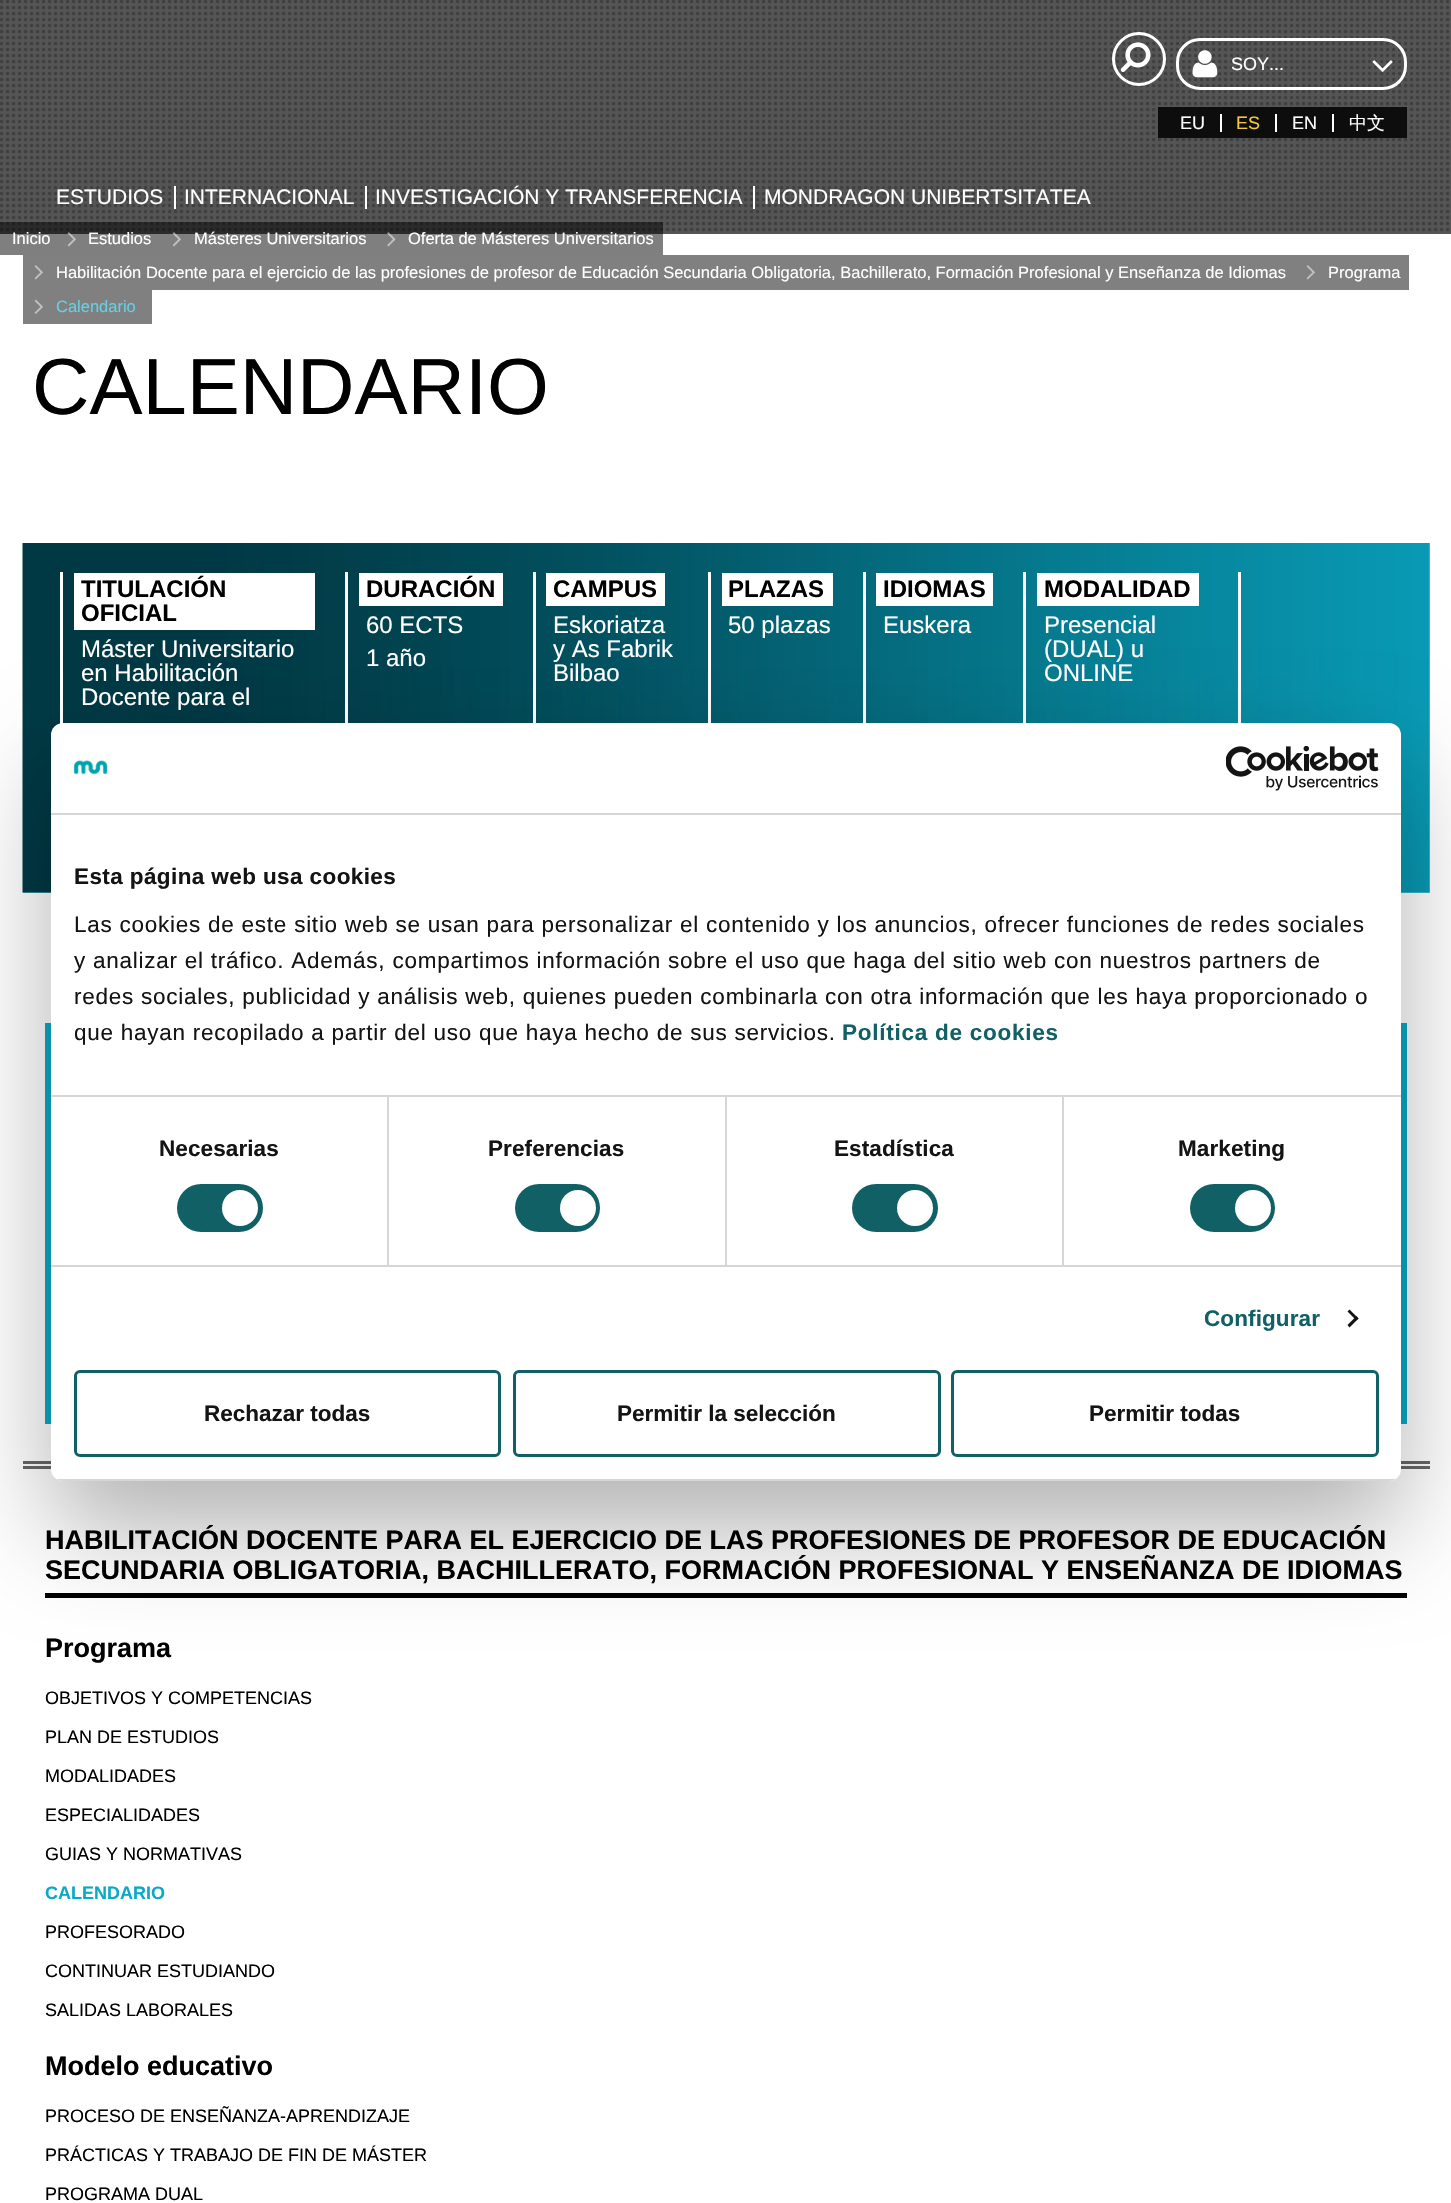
void draw(SkCanvas* canvas) {
  SkPaint paint;
  paint.setAntiAlias(true);
  auto face = [&](const char* family, int weight, float size, bool italic = false) {
    SkFontStyle style(weight, SkFontStyle::kNormal_Width,
      italic ? SkFontStyle::kItalic_Slant : SkFontStyle::kUpright_Slant);
    SkFont result(fontMgr->matchFamilyStyle(family, style), size);
    result.setSubpixel(true);
    return result;
  };
  auto writeSpaced = [&](const char* s, float x, float y, const SkFont& font, const SkPaint& ink, float letter, float word) {
    std::vector<SkGlyphID> glyphs(font.countText(s, strlen(s), SkTextEncoding::kUTF8));
    std::vector<float> xs(glyphs.size());
    font.textToGlyphs(s, strlen(s), SkTextEncoding::kUTF8, glyphs);
    font.getXPos(glyphs, xs, x);
    float extra = 0;
    for (size_t i = 0; i < glyphs.size(); i++) {
      xs[i] += extra;
      extra += letter + word * (glyphs[i] == font.unicharToGlyph(' '));
    }
    canvas->drawTextBlob(SkTextBlob::MakeFromPosHGlyphs(glyphs, xs, y, font), 0, 0, ink);
  };
  auto paste = [&](const char* path, float x, float y, float w, float h) {
    auto image = SkImages::DeferredFromEncodedData(SkData::MakeFromFileName(path));
    canvas->drawImageRect(image, SkRect::MakeXYWH(x, y, w, h), SkSamplingOptions());
  };
  auto shape = [&](const char* data, bool evenOdd = false) {
    SkPath result = *SkParsePath::FromSVGString(data);
    if (evenOdd) result.setFillType(SkPathFillType::kEvenOdd);
    return result;
  };
  canvas->clear(0xffffffff);
  paint.setColor(0xff555555);
  canvas->drawRect(SkRect::MakeXYWH(0, 0, 1451, 234), paint);
  paste("img/1.png", 0, 0, 1450, 232);
  paint.setStroke(true);
  paint.setStrokeWidth(3);
  paint.setColor(0xffffffff);
  canvas->drawCircle(1139, 59, 25.5f, paint);
  paste("img/2.png", 1120, 42, 31, 30);
  canvas->drawRoundRect(SkRect::MakeXYWH(1177.5f, 39.5f, 228, 49), 22.5f, 22.5f, paint);
  paste("img/3.png", 1192, 50, 26, 28);
  paste("img/4.png", 1372, 60, 21, 12);
  paint.setStroke(false);
  {
    const struct { float x, y, w, h; SkColor color; } items[] = {
      {1158, 107, 249, 31, 0xff0d0d0d},
      {1220, 114, 2, 18, 0xffffffff},
      {1275, 114, 2, 18, 0xffffffff},
      {1332, 114, 2, 18, 0xffffffff},
      {174, 186, 2, 23, 0xffffffff},
      {365, 186, 2, 23, 0xffffffff},
      {753, 186, 2, 23, 0xffffffff},
      {0, 222, 63, 33, 0x80000000},
      {63, 222, 98, 33, 0x80000000},
    };
    for (auto [x, y, w, h, color] : items) {
      paint.setColor(color);
      canvas->drawRect(SkRect::MakeXYWH(x, y, w, h), paint);
    }
  }
  paste("img/5.png", 67, 232, 9, 15);
  canvas->drawRect(SkRect::MakeXYWH(161, 222, 214, 33), paint);
  paste("img/5.png", 172, 232, 9, 15);
  canvas->drawRect(SkRect::MakeXYWH(375, 222, 288, 33), paint);
  paste("img/6.png", 387, 232, 9, 15);
  paint.setColor(0xff808080);
  canvas->drawRect(SkRect::MakeXYWH(23, 255, 1386, 35), paint);
  paste("img/7.png", 34, 265, 9, 15);
  paste("img/7.png", 1306, 265, 9, 15);
  canvas->drawRect(SkRect::MakeXYWH(23, 290, 129, 34), paint);
  paste("img/8.png", 34, 299, 9, 15);
  paint.setColor(0xff65d0e3);
  canvas->drawRect(SkRect::MakeXYWH(23, 543, 1407, 350), paint);
  paste("img/9.png", 22, 543, 1408, 350);
  {
    const struct { float x, y, w, h; SkColor color; } items[] = {
      {60, 572, 3, 152, 0xffffffff},
      {74, 573, 241, 57, 0xffffffff},
      {345, 572, 3, 151, 0xffffffff},
      {359, 573, 144, 33, 0xffffffff},
      {533, 572, 3, 151, 0xffffffff},
      {546, 573, 119, 33, 0xffffffff},
      {708, 572, 3, 151, 0xffffffff},
      {722, 573, 111, 33, 0xffffffff},
      {863, 572, 3, 151, 0xffffffff},
      {876, 573, 117, 33, 0xffffffff},
      {1023, 572, 3, 151, 0xffffffff},
      {1037, 573, 162, 33, 0xffffffff},
      {1238, 572, 3, 151, 0xffffffff},
      {45, 1023, 6, 401, 0xff0aaac7},
      {1401, 1023, 6, 401, 0xff0aaac7},
      {23, 1461, 1407, 3, 0xff666666},
      {23, 1466, 1407, 3, 0xff666666},
      {45, 1593, 1362, 5, 0xff000000},
    };
    for (auto [x, y, w, h, color] : items) {
      paint.setColor(color);
      canvas->drawRect(SkRect::MakeXYWH(x, y, w, h), paint);
    }
  }
  paint.setColor(0x4d000000);
  paint.setMaskFilter(SkMaskFilter::MakeBlur(kNormal_SkBlurStyle, 51));
  canvas->drawRoundRect(SkRect::MakeXYWH(51, 771, 1350, 758), 12, 12, paint);
  paint.setMaskFilter(nullptr);
  paint.setColor(0xffffffff);
  canvas->drawRoundRect(SkRect::MakeXYWH(51, 723, 1350, 758), 12, 12, paint);
  paint.setColor(0xffd6d6d6);
  canvas->drawRect(SkRect::MakeXYWH(51, 813, 1350, 2), paint);
  paste("img/10.png", 73, 760, 35, 15);
  paste("img/11.png", 1226, 746, 153, 45);
  {
    const struct { float x, y, w, h; SkColor color; } items[] = {
      {51, 1095, 1350, 2, 0xffd6d6d6},
      {51, 1265, 1350, 2, 0xffd6d6d6},
      {51, 1095, 1, 2, 0xffe5e5e5},
      {387, 1097, 2, 168, 0xffd6d6d6},
    };
    for (auto [x, y, w, h, color] : items) {
      paint.setColor(color);
      canvas->drawRect(SkRect::MakeXYWH(x, y, w, h), paint);
    }
  }
  paint.setColor(0xff116065);
  canvas->drawRoundRect(SkRect::MakeXYWH(177, 1184, 86, 48), 24, 24, paint);
  paint.setColor(0xffffffff);
  canvas->drawCircle(240, 1208, 18, paint);
  paint.setColor(0xffd6d6d6);
  canvas->drawRect(SkRect::MakeXYWH(725, 1097, 2, 168), paint);
  paint.setColor(0xff116065);
  canvas->drawRoundRect(SkRect::MakeXYWH(515, 1184, 85, 48), 24, 24, paint);
  paint.setColor(0xffffffff);
  canvas->drawCircle(578, 1208, 18, paint);
  paint.setColor(0xffd6d6d6);
  canvas->drawRect(SkRect::MakeXYWH(1062, 1097, 2, 168), paint);
  paint.setColor(0xff116065);
  canvas->drawRoundRect(SkRect::MakeXYWH(852, 1184, 86, 48), 24, 24, paint);
  paint.setColor(0xffffffff);
  canvas->drawCircle(915, 1208, 18, paint);
  paint.setColor(0xff116065);
  canvas->drawRoundRect(SkRect::MakeXYWH(1190, 1184, 85, 48), 24, 24, paint);
  paint.setColor(0xffffffff);
  canvas->drawCircle(1253, 1208, 18, paint);
  paint.setColor(0xff141414);
  canvas->drawPath(shape("M1349.5 1309.5L1358.5 1318.5L1356.5 1320.5L1347.5 1311.5Z"), paint);
  canvas->drawPath(shape("M1356.5 1316L1358.5 1318.5L1349.5 1327.5L1347.5 1325Z"), paint);
  canvas->save();
  canvas->clipPath(shape("M63 723H1389C1395.5 723 1401 728.5 1401 735V1469C1401 1475.5 1395.5 1481 1389 1481H63C56.5 1481 51 1475.5 51 1469V735C51 728.5 56.5 723 63 723Z"), true);
  paint.setColor(0xffd6d6d6);
  canvas->drawRect(SkRect::MakeXYWH(51, 1479, 1350, 2), paint);
  canvas->restore();
  paint.setStroke(true);
  paint.setColor(0xff116065);
  canvas->drawRoundRect(SkRect::MakeXYWH(75.5f, 1371.5f, 424, 84), 4.5f, 4.5f, paint);
  canvas->drawRoundRect(SkRect::MakeXYWH(514.5f, 1371.5f, 425, 84), 4.5f, 4.5f, paint);
  canvas->drawRoundRect(SkRect::MakeXYWH(952.5f, 1371.5f, 425, 84), 4.5f, 4.5f, paint);
  auto f0 = face("Liberation Sans", 400, 18);
  paint.setStroke(false);
  paint.setColor(0xffffffff);
  canvas->drawString("SOY...", 1231, 70, f0, paint);
  canvas->drawString("EU", 1180, 129, f0, paint);
  paint.setColor(0xfff2c741);
  canvas->drawString("ES", 1236, 129, f0, paint);
  paint.setColor(0xffffffff);
  canvas->drawString("EN", 1292, 129, f0, paint);
  auto f1 = face("WenQuanYi Zen Hei", 500, 18);
  canvas->drawString("中文", 1349, 129, f1, paint);
  auto f2 = face("Liberation Sans", 400, 21);
  {
    const struct { const char* s; float x, y; } items[] = {
      {"ESTUDIOS", 56, 204},
      {"INTERNACIONAL", 184, 204},
      {"INVESTIGACIÓN Y TRANSFERENCIA", 375, 204},
      {"MONDRAGON UNIBERTSITATEA", 764, 204},
    };
    for (auto [s, x, y] : items) {
      canvas->drawString(s, x, y, f2, paint);
    }
  }
  auto f3 = face("Liberation Sans", 400, 16.5f);
  {
    const struct { const char* s; float x, y; } items[] = {
      {"Inicio", 12, 244},
      {"Estudios", 88, 244},
      {"Másteres Universitarios", 194, 244},
      {"Oferta de Másteres Universitarios", 408, 244},
      {"Habilitación Docente para el ejercicio de las profesiones de profesor de Educación Secundaria Obligatoria, Bachillerato, Formación Profesional y Enseñanza de Idiomas", 56, 278},
      {"Programa", 1328, 278},
    };
    for (auto [s, x, y] : items) {
      canvas->drawString(s, x, y, f3, paint);
    }
  }
  paint.setColor(0xff65d0e3);
  canvas->drawString("Calendario", 56, 312, f3, paint);
  auto f4 = face("Liberation Sans", 400, 79.5f);
  paint.setColor(0xff000000);
  canvas->drawString("CALENDARIO", 32, 414, f4, paint);
  auto f5 = face("Liberation Sans", 700, 24);
  canvas->drawString("TITULACIÓN", 81, 597, f5, paint);
  canvas->drawString("OFICIAL", 81, 621, f5, paint);
  auto f6 = face("Liberation Sans", 400, 24);
  paint.setColor(0xffffffff);
  {
    const struct { const char* s; float x, y; } items[] = {
      {"Máster Universitario", 81, 657},
      {"en Habilitación", 81, 681},
      {"Docente para el", 81, 705},
    };
    for (auto [s, x, y] : items) {
      canvas->drawString(s, x, y, f6, paint);
    }
  }
  paint.setColor(0xff000000);
  canvas->drawString("DURACIÓN", 366, 597, f5, paint);
  paint.setColor(0xffffffff);
  canvas->drawString("60 ECTS", 366, 633, f6, paint);
  canvas->drawString("1 año", 366, 666, f6, paint);
  paint.setColor(0xff000000);
  canvas->drawString("CAMPUS", 553, 597, f5, paint);
  paint.setColor(0xffffffff);
  {
    const struct { const char* s; float x, y; } items[] = {
      {"Eskoriatza", 553, 633},
      {"y As Fabrik", 553, 657},
      {"Bilbao", 553, 681},
    };
    for (auto [s, x, y] : items) {
      canvas->drawString(s, x, y, f6, paint);
    }
  }
  paint.setColor(0xff000000);
  canvas->drawString("PLAZAS", 728, 597, f5, paint);
  paint.setColor(0xffffffff);
  canvas->drawString("50 plazas", 728, 633, f6, paint);
  paint.setColor(0xff000000);
  canvas->drawString("IDIOMAS", 883, 597, f5, paint);
  paint.setColor(0xffffffff);
  canvas->drawString("Euskera", 883, 633, f6, paint);
  paint.setColor(0xff000000);
  canvas->drawString("MODALIDAD", 1044, 597, f5, paint);
  paint.setColor(0xffffffff);
  {
    const struct { const char* s; float x, y; } items[] = {
      {"Presencial", 1044, 633},
      {"(DUAL) u", 1044, 657},
      {"ONLINE", 1044, 681},
    };
    for (auto [s, x, y] : items) {
      canvas->drawString(s, x, y, f6, paint);
    }
  }
  auto f7 = face("Liberation Sans", 700, 27);
  paint.setColor(0xff000000);
  {
    const struct { const char* s; float x, y; } items[] = {
      {"HABILITACIÓN DOCENTE PARA EL EJERCICIO DE LAS PROFESIONES DE PROFESOR DE EDUCACIÓN", 45, 1549},
      {"SECUNDARIA OBLIGATORIA, BACHILLERATO, FORMACIÓN PROFESIONAL Y ENSEÑANZA DE IDIOMAS", 45, 1579},
      {"Programa", 45, 1657},
    };
    for (auto [s, x, y] : items) {
      canvas->drawString(s, x, y, f7, paint);
    }
  }
  {
    const struct { const char* s; float x, y; } items[] = {
      {"OBJETIVOS Y COMPETENCIAS", 45, 1704},
      {"PLAN DE ESTUDIOS", 45, 1743},
      {"MODALIDADES", 45, 1782},
      {"ESPECIALIDADES", 45, 1821},
      {"GUIAS Y NORMATIVAS", 45, 1860},
    };
    for (auto [s, x, y] : items) {
      canvas->drawString(s, x, y, f0, paint);
    }
  }
  auto f8 = face("Liberation Sans", 700, 18);
  paint.setColor(0xff0aaac7);
  canvas->drawString("CALENDARIO", 45, 1899, f8, paint);
  paint.setColor(0xff000000);
  {
    const struct { const char* s; float x, y; } items[] = {
      {"PROFESORADO", 45, 1938},
      {"CONTINUAR ESTUDIANDO", 45, 1977},
      {"SALIDAS LABORALES", 45, 2016},
    };
    for (auto [s, x, y] : items) {
      canvas->drawString(s, x, y, f0, paint);
    }
  }
  canvas->drawString("Modelo educativo", 45, 2075, f7, paint);
  {
    const struct { const char* s; float x, y; } items[] = {
      {"PROCESO DE ENSEÑANZA-APRENDIZAJE", 45, 2122},
      {"PRÁCTICAS Y TRABAJO DE FIN DE MÁSTER", 45, 2161},
      {"PROGRAMA DUAL", 45, 2200},
    };
    for (auto [s, x, y] : items) {
      canvas->drawString(s, x, y, f0, paint);
    }
  }
  auto f9 = face("Liberation Sans", 700, 22.5f);
  paint.setColor(0xff141414);
  writeSpaced("Esta página web usa cookies", 74, 884, f9, paint, 0.4f, 0);
  auto f10 = face("Liberation Sans", 400, 22.5f);
  {
    const struct { const char* s; float x, y; } items[] = {
      {"Las cookies de este sitio web se usan para personalizar el contenido y los anuncios, ofrecer funciones de redes sociales", 74, 932},
      {"y analizar el tráfico. Además, compartimos información sobre el uso que haga del sitio web con nuestros partners de", 74, 968},
      {"redes sociales, publicidad y análisis web, quienes pueden combinarla con otra información que les haya proporcionado o", 74, 1004},
      {"que hayan recopilado a partir del uso que haya hecho de sus servicios.", 74, 1040},
    };
    for (auto [s, x, y] : items) {
      writeSpaced(s, x, y, f10, paint, 0.75f, 0);
    }
  }
  paint.setColor(0xff116065);
  writeSpaced("Política de cookies", 842, 1040, f9, paint, 0.75f, 0);
  paint.setColor(0xff141414);
  {
    const struct { const char* s; float x, y; } items[] = {
      {"Necesarias", 159, 1156},
      {"Preferencias", 488, 1156},
      {"Estadística", 834, 1156},
      {"Marketing", 1178, 1156},
    };
    for (auto [s, x, y] : items) {
      writeSpaced(s, x, y, f9, paint, 0.1f, 0);
    }
  }
  paint.setColor(0xff116065);
  writeSpaced("Configurar", 1204, 1326, f9, paint, 0.1f, 0);
  paint.setColor(0xff141414);
  {
    const struct { const char* s; float x, y; } items[] = {
      {"Rechazar todas", 204, 1421},
      {"Permitir la selección", 617, 1421},
      {"Permitir todas", 1089, 1421},
    };
    for (auto [s, x, y] : items) {
      canvas->drawString(s, x, y, f9, paint);
    }
  }
}
